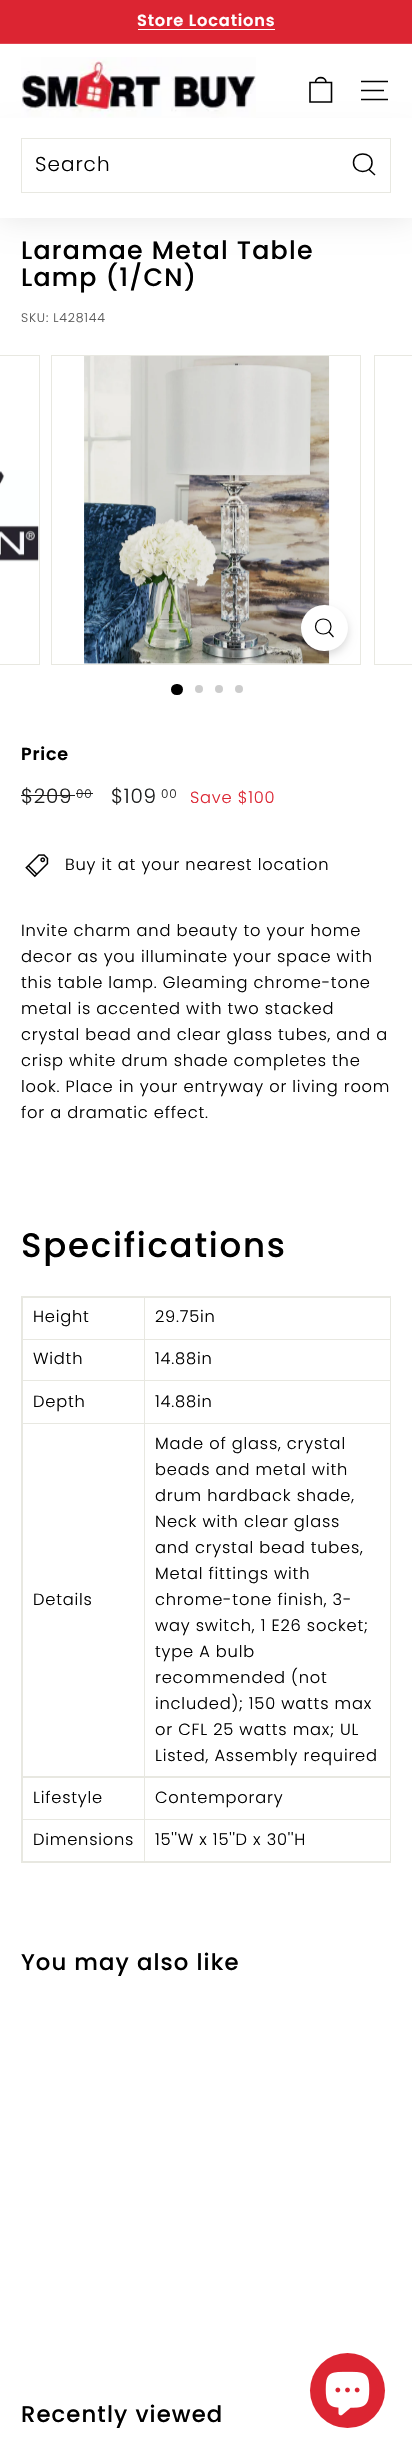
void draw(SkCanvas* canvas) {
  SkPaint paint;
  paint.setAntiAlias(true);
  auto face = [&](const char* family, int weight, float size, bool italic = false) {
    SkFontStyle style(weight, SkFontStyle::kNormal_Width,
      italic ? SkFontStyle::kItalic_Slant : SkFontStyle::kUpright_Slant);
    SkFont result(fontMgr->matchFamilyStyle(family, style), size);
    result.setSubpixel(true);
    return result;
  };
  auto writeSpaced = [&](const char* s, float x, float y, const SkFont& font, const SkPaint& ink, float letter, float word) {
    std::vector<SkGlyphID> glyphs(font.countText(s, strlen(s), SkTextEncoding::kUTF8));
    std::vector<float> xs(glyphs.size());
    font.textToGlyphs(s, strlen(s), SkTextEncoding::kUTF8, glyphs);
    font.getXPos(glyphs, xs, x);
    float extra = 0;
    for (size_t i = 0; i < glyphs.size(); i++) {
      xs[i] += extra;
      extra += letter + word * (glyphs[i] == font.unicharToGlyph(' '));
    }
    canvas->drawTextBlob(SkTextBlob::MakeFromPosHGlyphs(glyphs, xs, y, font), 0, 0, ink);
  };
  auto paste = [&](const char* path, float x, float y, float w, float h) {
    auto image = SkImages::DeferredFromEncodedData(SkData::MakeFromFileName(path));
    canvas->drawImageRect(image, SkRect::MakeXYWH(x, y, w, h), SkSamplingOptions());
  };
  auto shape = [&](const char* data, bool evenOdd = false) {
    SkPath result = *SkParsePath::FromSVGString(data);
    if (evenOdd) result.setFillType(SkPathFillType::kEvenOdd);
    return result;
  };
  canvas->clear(0xffffffff);
  {
    const struct { float x, y, w, h; SkColor color; } items[] = {
      {0, 0, 412, 43, 0xffdc2532},
      {138, 29, 137, 1, 0xffffffff},
      {0, 43, 412, 1, 0xffe14651},
    };
    for (auto [x, y, w, h, color] : items) {
      paint.setColor(color);
      canvas->drawRect(SkRect::MakeXYWH(x, y, w, h), paint);
    }
  }
  paint.setColor(0x1a000000);
  paint.setMaskFilter(SkMaskFilter::MakeBlur(kNormal_SkBlurStyle, 15.5f));
  canvas->drawRect(SkRect::MakeXYWH(0, 138, 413, 80), paint);
  paint.setMaskFilter(nullptr);
  paste("img/1.png", 21, 57, 235, 61);
  paint.setStroke(true);
  paint.setStrokeWidth(1.6f);
  paint.setColor(0xff000000);
  canvas->drawPath(shape("M315.5 82.5C315.5 76 326 76 326 82.5M310 82.5H331.5V102H310Z"), paint);
  canvas->drawPath(shape("M361 81.5H388M361 90.5H384M361 99.5H388"), paint);
  paint.setStroke(false);
  paint.setColor(0xffffffff);
  canvas->drawRect(SkRect::MakeXYWH(0, 118, 412, 100), paint);
  paint.setStroke(true);
  paint.setStrokeWidth(1);
  paint.setColor(0xffe8e8e1);
  canvas->drawRect(SkRect::MakeXYWH(21.5f, 138.5f, 369, 54), paint);
  paint.setStrokeWidth(1.5f);
  paint.setColor(0xff000000);
  canvas->drawPath(shape("M372 162.5C372 174.5 353.5 174.5 353.5 162.5C353.5 151 372 151 372 162.5ZM375 175L369 169.5"), paint);
  paint.setStrokeWidth(1);
  paint.setColor(0xffe8e8e1);
  canvas->drawRect(SkRect::MakeXYWH(-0.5f, 355.5f, 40, 309), paint);
  paste("img/2.png", 0, 470, 39, 92);
  canvas->drawRect(SkRect::MakeXYWH(51.5f, 355.5f, 309, 309), paint);
  paste("img/3.png", 84, 356, 246, 308);
  paint.setStroke(false);
  paint.setColor(0x26000000);
  paint.setMaskFilter(SkMaskFilter::MakeBlur(kNormal_SkBlurStyle, 4));
  canvas->drawRoundRect(SkRect::MakeXYWH(301, 609, 47, 46), 23, 23, paint);
  paint.setMaskFilter(nullptr);
  paint.setColor(0xffffffff);
  canvas->drawRoundRect(SkRect::MakeXYWH(301, 605, 47, 46), 23, 23, paint);
  paint.setStroke(true);
  paint.setStrokeWidth(1.2f);
  paint.setColor(0xff000000);
  canvas->drawPath(shape("M331 626.5C331 636.5 315.5 636.5 315.5 626.5C315.5 616.5 331 616.5 331 626.5ZM333.5 637L329 632"), paint);
  paint.setStrokeWidth(1);
  paint.setColor(0xffe8e8e1);
  canvas->drawRect(SkRect::MakeXYWH(374.5f, 355.5f, 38, 309), paint);
  paint.setStroke(false);
  paint.setColor(0xff000000);
  canvas->drawRoundRect(SkRect::MakeXYWH(171, 684, 12, 11), 5.5f, 5.5f, paint);
  paint.setColor(0xffcccccc);
  canvas->drawCircle(199, 689, 4, paint);
  canvas->drawCircle(219, 689, 4, paint);
  canvas->drawCircle(239, 689, 4, paint);
  paint.setColor(0xff1c1d1d);
  canvas->drawRect(SkRect::MakeXYWH(21, 795, 54, 1), paint);
  canvas->drawRect(SkRect::MakeXYWH(76, 793, 17, 1), paint);
  paste("img/4.png", 25, 854, 24, 24);
  {
    const struct { float x, y, w, h; SkColor color; } items[] = {
      {21, 1296, 370, 567, 0xffe8e8e1},
      {23, 1298, 121, 41, 0xffffffff},
      {145, 1298, 245, 41, 0xffffffff},
      {23, 1340, 121, 40, 0xffffffff},
      {145, 1340, 245, 40, 0xffffffff},
      {23, 1381, 121, 42, 0xffffffff},
      {145, 1381, 245, 42, 0xffffffff},
      {23, 1424, 121, 352, 0xffffffff},
      {145, 1424, 245, 352, 0xffffffff},
      {23, 1778, 121, 41, 0xffffffff},
      {145, 1778, 245, 41, 0xffffffff},
      {23, 1820, 121, 41, 0xffffffff},
      {145, 1820, 245, 41, 0xffffffff},
    };
    for (auto [x, y, w, h, color] : items) {
      paint.setColor(color);
      canvas->drawRect(SkRect::MakeXYWH(x, y, w, h), paint);
    }
  }
  paint.setColor(0xffdc2532);
  canvas->drawCircle(347.5f, 2390.5f, 37.5f, paint);
  paste("img/5.png", 325, 2371, 45, 45);
  auto f0 = face("Poppins", 600, 16.25f);
  paint.setColor(0xffffffff);
  writeSpaced("Store Locations", 137, 26, f0, paint, 0.8f, 0);
  auto f1 = face("Poppins", 300, 20);
  paint.setColor(0xff000000);
  writeSpaced("Search", 35, 171, f1, paint, 1, 0);
  auto f2 = face("Poppins", 500, 25.25f);
  writeSpaced("Laramae Metal Table", 21, 259, f2, paint, 1.25f, 0);
  writeSpaced("Lamp (1/CN)", 21, 286, f2, paint, 1.25f, 0);
  auto f3 = face("Poppins", 300, 12.5f);
  paint.setColor(0xff595959);
  writeSpaced("SKU: L428144", 21, 322, f3, paint, 0.8f, 0);
  auto f4 = face("Poppins", 600, 17.5f);
  paint.setColor(0xff000000);
  writeSpaced("Price", 21, 760, f4, paint, 0.8f, 0);
  paint.setColor(0xff1c1d1d);
  writeSpaced("$209", 21, 803, f1, paint, 0.8f, 0);
  auto f5 = face("Poppins", 300, 12);
  writeSpaced("00", 76, 798, f5, paint, 0.8f, 0);
  writeSpaced("$109", 111, 803, f1, paint, 0.8f, 0);
  writeSpaced("00", 161, 798, f5, paint, 0.8f, 0);
  auto f6 = face("Poppins", 300, 16.25f);
  paint.setColor(0xffdc2532);
  writeSpaced("Save $100", 190, 803, f6, paint, 0.8f, 0);
  paint.setColor(0xff000000);
  {
    const struct { const char* s; float x, y; } items[] = {
      {"Buy it at your nearest location", 65, 870},
      {"Invite charm and beauty to your home", 21, 936},
      {"decor as you illuminate your space with", 21, 962},
      {"this table lamp. Gleaming chrome-tone", 21, 988},
      {"metal is accented with two stacked", 21, 1014},
      {"crystal bead and clear glass tubes, and a", 21, 1040},
      {"crisp white drum shade completes the", 21, 1066},
      {"look. Place in your entryway or living room", 21, 1092},
      {"for a dramatic effect.", 21, 1118},
    };
    for (auto [s, x, y] : items) {
      writeSpaced(s, x, y, f6, paint, 0.8f, 0);
    }
  }
  auto f7 = face("Poppins", 500, 34);
  writeSpaced("Specifications", 21, 1257, f7, paint, 1.75f, 0);
  {
    const struct { const char* s; float x, y; } items[] = {
      {"Height", 33, 1322},
      {"29.75in", 155, 1322},
      {"Width", 33, 1364},
      {"14.88in", 155, 1364},
      {"Depth", 33, 1407},
      {"14.88in", 155, 1407},
      {"Details", 33, 1605},
      {"Made of glass, crystal", 155, 1449},
      {"beads and metal with", 155, 1475},
      {"drum hardback shade,", 155, 1501},
      {"Neck with clear glass", 155, 1527},
      {"and crystal bead tubes,", 155, 1553},
      {"Metal fittings with", 155, 1579},
      {"chrome-tone finish, 3-", 155, 1605},
      {"way switch, 1 E26 socket;", 155, 1631},
      {"type A bulb", 155, 1657},
      {"recommended (not", 155, 1683},
      {"included); 150 watts max", 155, 1709},
      {"or CFL 25 watts max; UL", 155, 1735},
      {"Listed, Assembly required", 155, 1761},
      {"Lifestyle", 33, 1803},
      {"Contemporary", 155, 1803},
      {"Dimensions", 33, 1845},
      {"15''W x 15''D x 30''H", 155, 1845},
    };
    for (auto [s, x, y] : items) {
      writeSpaced(s, x, y, f6, paint, 0.8f, 0);
    }
  }
  auto f8 = face("Poppins", 500, 22.75f);
  writeSpaced("You may also like", 21, 1970, f8, paint, 1.1f, 0);
  writeSpaced("Recently viewed", 21, 2422, f8, paint, 1.1f, 0);
}
